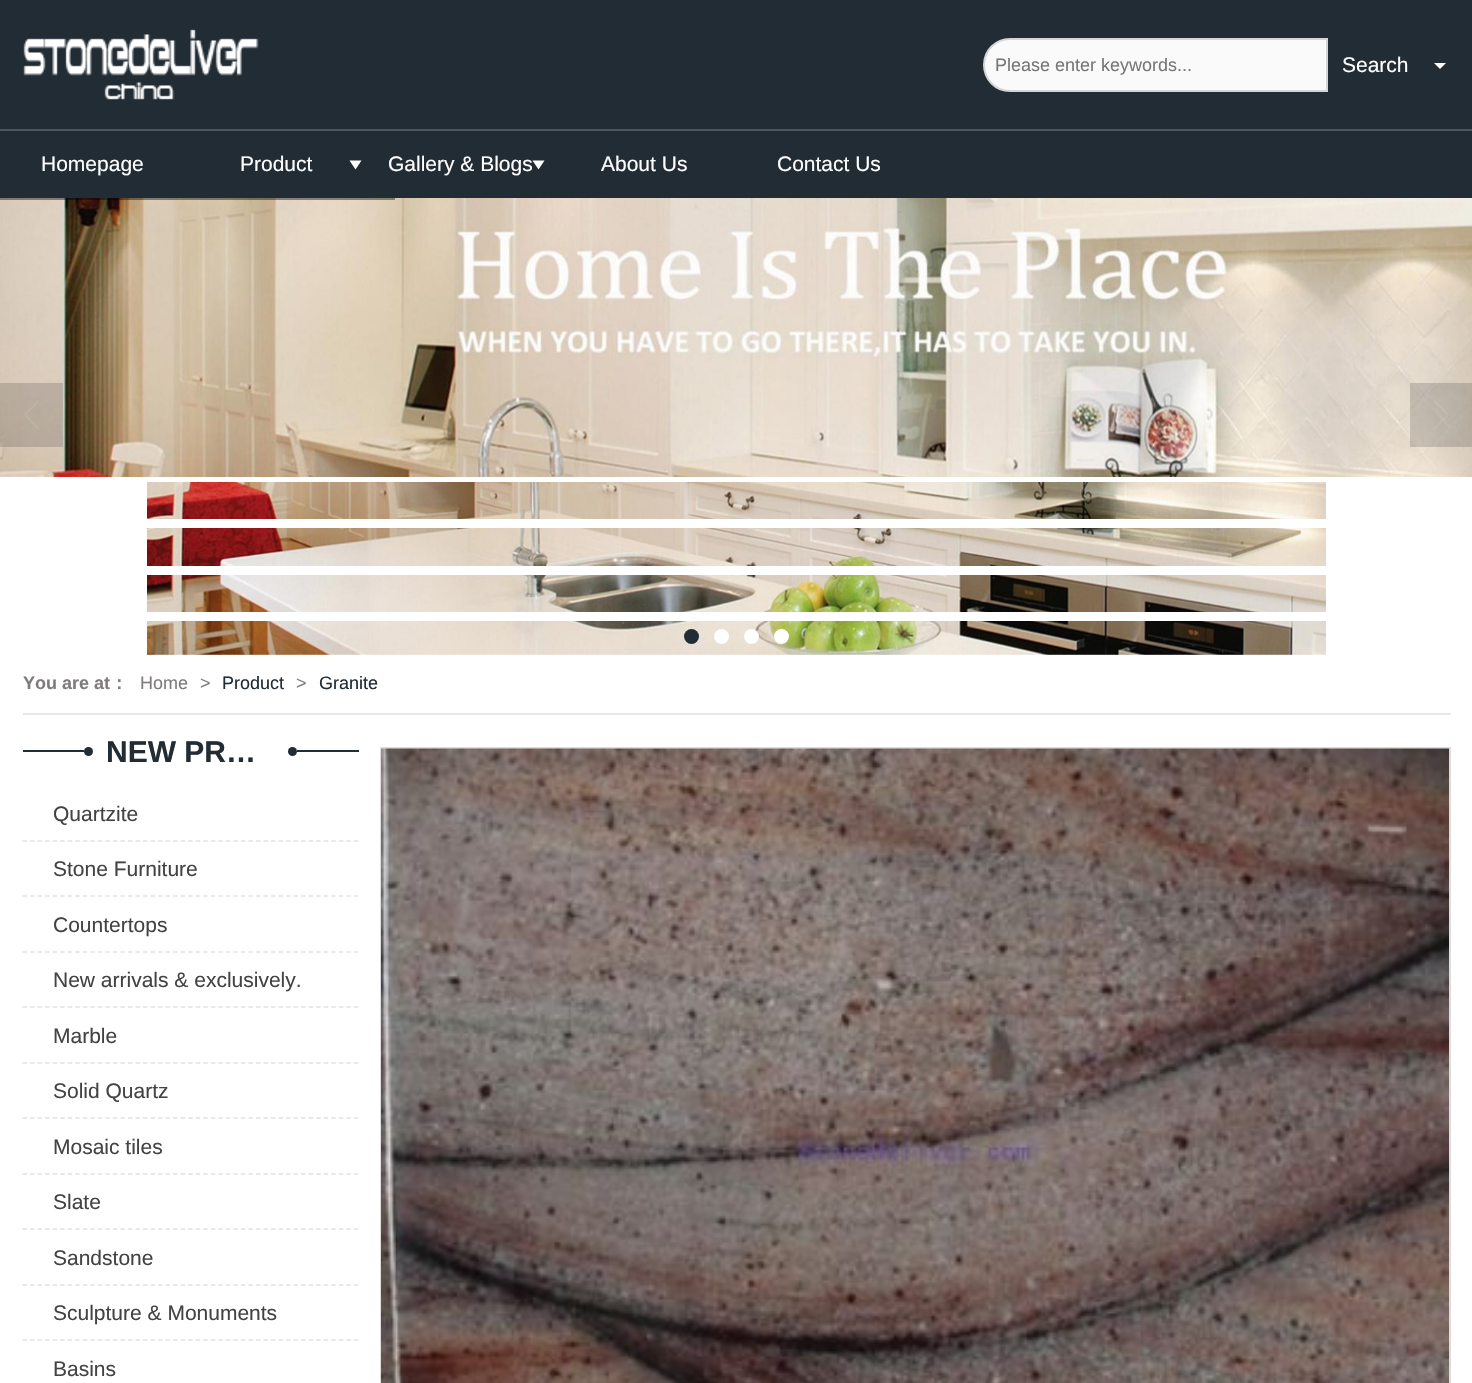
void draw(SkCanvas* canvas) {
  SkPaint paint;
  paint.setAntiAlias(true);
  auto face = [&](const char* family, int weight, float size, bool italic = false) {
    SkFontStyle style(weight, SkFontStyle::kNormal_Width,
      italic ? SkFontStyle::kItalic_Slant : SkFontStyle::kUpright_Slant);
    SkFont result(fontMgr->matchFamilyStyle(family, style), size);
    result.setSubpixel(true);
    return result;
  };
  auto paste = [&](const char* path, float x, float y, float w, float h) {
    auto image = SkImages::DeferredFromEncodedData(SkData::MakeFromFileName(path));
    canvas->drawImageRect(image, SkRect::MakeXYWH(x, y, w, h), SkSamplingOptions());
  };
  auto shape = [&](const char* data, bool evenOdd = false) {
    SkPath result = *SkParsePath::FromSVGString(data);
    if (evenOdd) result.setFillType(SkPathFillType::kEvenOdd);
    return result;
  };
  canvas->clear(0xffffffff);
  paint.setColor(0xff222c35);
  canvas->drawRect(SkRect::MakeXYWH(0, 0, 1472, 198), paint);
  paste("img/1.png", 23, 29, 236, 71);
  paint.setColor(0xfffafafa);
  canvas->drawPath(shape("M1010 39H1327V91H1010C995.5 91 984 79.5 984 65C984 50.5 995.5 39 1010 39Z"), paint);
  paint.setStroke(true);
  paint.setStrokeWidth(2);
  paint.setColor(0xffd5d5d5);
  canvas->drawPath(shape("M1010 39H1327V91H1010C995.5 91 984 79.5 984 65C984 50.5 995.5 39 1010 39Z"), paint);
  paint.setStroke(false);
  paint.setColor(0xffffffff);
  canvas->drawPath(shape("M1434 63H1446L1440 69Z"), paint);
  paint.setColor(0xff4e565d);
  canvas->drawRect(SkRect::MakeXYWH(0, 129, 1472, 2), paint);
  paint.setColor(0xffffffff);
  canvas->drawPath(shape("M349.5 160.5H361.5L355.5 169.5Z"), paint);
  canvas->drawPath(shape("M532.5 160.5H544.5L538.5 169.5Z"), paint);
  paste("img/2.png", 0, 198, 1472, 47);
  paste("img/3.png", 0, 245, 1472, 46);
  paste("img/4.png", 0, 291, 1472, 47);
  paste("img/5.png", 0, 338, 1472, 46);
  paste("img/6.png", 0, 384, 1472, 47);
  paste("img/7.png", 0, 431, 1472, 46);
  paste("img/8.png", 147, 482, 1179, 37);
  paste("img/9.png", 147, 528, 1179, 38);
  paste("img/10.png", 147, 575, 1179, 37);
  paste("img/11.png", 147, 621, 1179, 34);
  paint.setColor(0x66000000);
  canvas->drawRect(SkRect::MakeXYWH(0, 198, 395, 2), paint);
  paint.setColor(0x33393939);
  canvas->drawRect(SkRect::MakeXYWH(0, 383, 63, 64), paint);
  paste("img/12.png", 24, 400, 15, 29);
  canvas->drawRect(SkRect::MakeXYWH(1410, 383, 62, 64), paint);
  paste("img/13.png", 1434, 400, 15, 29);
  paint.setColor(0xff222c35);
  canvas->drawCircle(691.5f, 636.5f, 7.5f, paint);
  paint.setColor(0xffffffff);
  canvas->drawCircle(721.5f, 636.5f, 7.5f, paint);
  canvas->drawCircle(751.5f, 636.5f, 7.5f, paint);
  canvas->drawCircle(781.5f, 636.5f, 7.5f, paint);
  {
    const struct { float x, y, w, h; SkColor color; } items[] = {
      {23, 713, 1428, 2, 0xffe7e7e7},
      {23, 750, 336, 2, 0xff222c35},
      {84, 750, 213, 2, 0xffffffff},
    };
    for (auto [x, y, w, h, color] : items) {
      paint.setColor(color);
      canvas->drawRect(SkRect::MakeXYWH(x, y, w, h), paint);
    }
  }
  paint.setColor(0xff222c35);
  canvas->drawCircle(88.5f, 751.5f, 4.5f, paint);
  canvas->drawCircle(292.5f, 751.5f, 4.5f, paint);
  paint.setStroke(true);
  paint.setStrokeWidth(1.5f);
  paint.setColor(0xffe3e2e2);
  paint.setPathEffect(SkDashPathEffect::Make({{4.5f, 3.03f}}, 0));
  canvas->drawPath(shape("M22.5 841H358.5"), paint);
  paint.setPathEffect(nullptr);
  paint.setPathEffect(SkDashPathEffect::Make({{4.5f, 3.03f}}, 0));
  canvas->drawPath(shape("M22.5 896H358.5"), paint);
  paint.setPathEffect(nullptr);
  paint.setPathEffect(SkDashPathEffect::Make({{4.5f, 3.03f}}, 0));
  canvas->drawPath(shape("M22.5 952H358.5"), paint);
  paint.setPathEffect(nullptr);
  paint.setPathEffect(SkDashPathEffect::Make({{4.5f, 3.03f}}, 0));
  canvas->drawPath(shape("M22.5 1007H358.5"), paint);
  paint.setPathEffect(nullptr);
  paint.setPathEffect(SkDashPathEffect::Make({{4.5f, 3.03f}}, 0));
  canvas->drawPath(shape("M22.5 1063H358.5"), paint);
  paint.setPathEffect(nullptr);
  paint.setPathEffect(SkDashPathEffect::Make({{4.5f, 3.03f}}, 0));
  canvas->drawPath(shape("M22.5 1118H358.5"), paint);
  paint.setPathEffect(nullptr);
  paint.setPathEffect(SkDashPathEffect::Make({{4.5f, 3.03f}}, 0));
  canvas->drawPath(shape("M22.5 1174H358.5"), paint);
  paint.setPathEffect(nullptr);
  paint.setPathEffect(SkDashPathEffect::Make({{4.5f, 3.03f}}, 0));
  canvas->drawPath(shape("M22.5 1229H358.5"), paint);
  paint.setPathEffect(nullptr);
  paint.setPathEffect(SkDashPathEffect::Make({{4.5f, 3.03f}}, 0));
  canvas->drawPath(shape("M22.5 1285H358.5"), paint);
  paint.setPathEffect(nullptr);
  paint.setPathEffect(SkDashPathEffect::Make({{4.5f, 3.03f}}, 0));
  canvas->drawPath(shape("M22.5 1340H358.5"), paint);
  paint.setPathEffect(nullptr);
  paint.setStrokeWidth(2);
  paint.setColor(0xffdddddd);
  canvas->drawRect(SkRect::MakeXYWH(381, 748, 1069, 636), paint);
  paste("img/14.png", 381, 748, 1068, 635);
  auto f0 = face("Liberation Sans", 400, 18);
  paint.setStroke(false);
  paint.setColor(0xff777777);
  canvas->drawString("Please enter keywords...", 995, 71, f0, paint);
  auto f1 = face("Liberation Sans", 400, 21);
  paint.setColor(0xffffffff);
  {
    const struct { const char* s; float x, y; } items[] = {
      {"Search", 1342, 72},
      {"Homepage", 41, 171},
      {"Product", 240, 171},
      {"Gallery & Blogs", 388, 171},
      {"About Us", 601, 171},
      {"Contact Us", 777, 171},
    };
    for (auto [s, x, y] : items) {
      canvas->drawString(s, x, y, f1, paint);
    }
  }
  auto f2 = face("Liberation Sans", 700, 18);
  paint.setColor(0xff807c7c);
  canvas->drawString("You are at", 23, 689, f2, paint);
  auto f3 = face("WenQuanYi Zen Hei", 700, 18);
  canvas->drawString("：", 110, 689, f3, paint);
  canvas->drawString("Home", 140, 689, f0, paint);
  canvas->drawString(">", 200, 689, f0, paint);
  paint.setColor(0xff222c35);
  canvas->drawString("Product", 222, 689, f0, paint);
  paint.setColor(0xff807c7c);
  canvas->drawString(">", 296, 689, f0, paint);
  paint.setColor(0xff222c35);
  canvas->drawString("Granite", 319, 689, f0, paint);
  auto f4 = face("Liberation Sans", 700, 30);
  canvas->drawString("NEW PR…", 106, 762, f4, paint);
  paint.setColor(0xff434343);
  {
    const struct { const char* s; float x, y; } items[] = {
      {"Quartzite", 53, 821},
      {"Stone Furniture", 53, 876},
      {"Countertops", 53, 932},
      {"New arrivals & exclusively.", 53, 987},
      {"Marble", 53, 1043},
      {"Solid Quartz", 53, 1098},
      {"Mosaic tiles", 53, 1154},
      {"Slate", 53, 1209},
      {"Sandstone", 53, 1265},
      {"Sculpture & Monuments", 53, 1320},
      {"Basins", 53, 1376},
    };
    for (auto [s, x, y] : items) {
      canvas->drawString(s, x, y, f1, paint);
    }
  }
}
